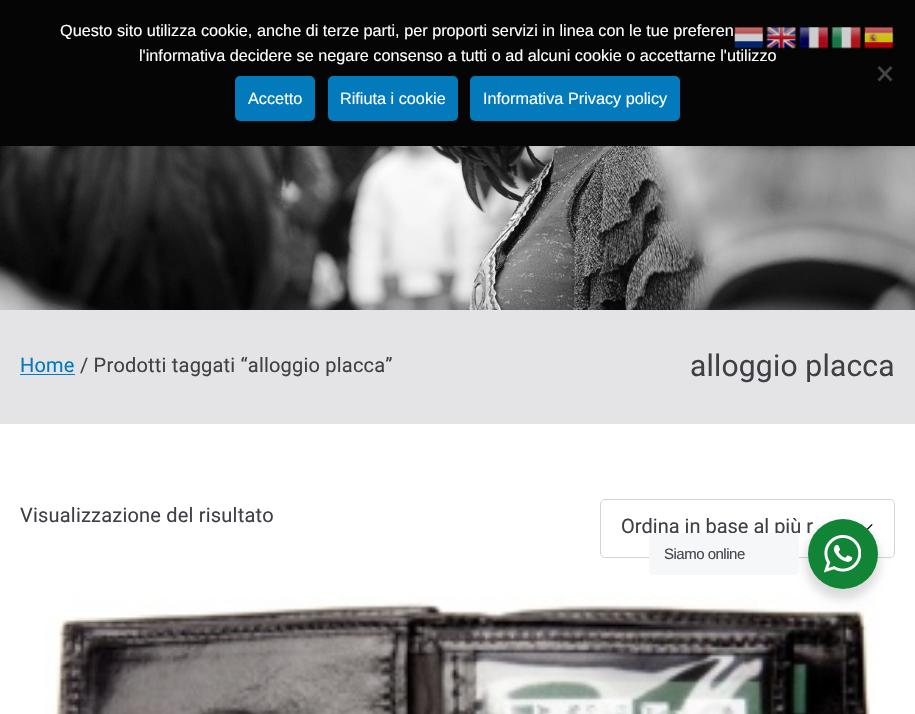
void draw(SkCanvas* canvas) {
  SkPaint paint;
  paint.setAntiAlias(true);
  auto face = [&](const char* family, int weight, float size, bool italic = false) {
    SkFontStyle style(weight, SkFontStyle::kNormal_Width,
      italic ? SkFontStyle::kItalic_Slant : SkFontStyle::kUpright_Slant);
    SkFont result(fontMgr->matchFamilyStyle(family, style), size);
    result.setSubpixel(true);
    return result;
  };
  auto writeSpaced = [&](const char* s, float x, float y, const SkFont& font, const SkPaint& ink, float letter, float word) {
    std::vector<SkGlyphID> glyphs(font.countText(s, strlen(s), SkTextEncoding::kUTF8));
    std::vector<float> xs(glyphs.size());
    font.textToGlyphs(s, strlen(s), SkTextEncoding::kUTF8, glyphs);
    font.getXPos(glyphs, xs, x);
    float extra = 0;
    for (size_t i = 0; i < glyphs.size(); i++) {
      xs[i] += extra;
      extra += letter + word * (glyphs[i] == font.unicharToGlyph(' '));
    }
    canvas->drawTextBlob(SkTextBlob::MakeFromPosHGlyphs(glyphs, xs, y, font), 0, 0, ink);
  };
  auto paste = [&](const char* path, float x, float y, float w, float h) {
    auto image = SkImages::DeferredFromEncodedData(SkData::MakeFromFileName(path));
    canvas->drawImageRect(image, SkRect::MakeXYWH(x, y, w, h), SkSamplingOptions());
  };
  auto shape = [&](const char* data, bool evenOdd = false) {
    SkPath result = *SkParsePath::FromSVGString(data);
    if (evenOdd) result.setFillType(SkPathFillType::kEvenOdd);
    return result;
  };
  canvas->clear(0xffe4e4e7);
  paint.setColor(0xff050505);
  canvas->drawRect(SkRect::MakeXYWH(0, 0, 915, 146), paint);
  paint.setColor(0xff434343);
  canvas->drawPath(shape("M890.5 66L892.5 68L879.5 81.5L877.5 79.5Z"), paint);
  canvas->drawPath(shape("M877.5 68L879.5 66L892.5 79.5L890.5 81.5Z"), paint);
  paint.setColor(0xff027abb);
  canvas->drawRoundRect(SkRect::MakeXYWH(235, 76, 80, 45), 5, 5, paint);
  canvas->drawRoundRect(SkRect::MakeXYWH(328, 76, 130, 45), 5, 5, paint);
  canvas->drawRoundRect(SkRect::MakeXYWH(470, 76, 210, 45), 5, 5, paint);
  paste("img/2.png", 766, 26, 30, 23);
  paste("img/3.png", 799, 26, 30, 23);
  paste("img/4.png", 831, 27, 30, 22);
  paste("img/5.png", 864, 27, 30, 22);
  paste("img/6.png", 0, 146, 915, 164);
  canvas->drawRect(SkRect::MakeXYWH(20, 374, 55, 1), paint);
  paint.setColor(0xffffffff);
  canvas->drawRect(SkRect::MakeXYWH(0, 424, 915, 290), paint);
  paste("img/7.png", 861, 524, 12, 6);
  paint.setStroke(true);
  paint.setStrokeWidth(1);
  paint.setColor(0xffd4d4d8);
  canvas->drawRoundRect(SkRect::MakeXYWH(600.5f, 499.5f, 294, 58), 4.5f, 4.5f, paint);
  paste("img/8.png", 44, 595, 836, 119);
  paint.setStroke(false);
  paint.setColor(0x24000000);
  paint.setMaskFilter(SkMaskFilter::MakeBlur(kNormal_SkBlurStyle, 5));
  canvas->drawRoundRect(SkRect::MakeXYWH(805, 524, 75, 75), 37.5f, 37.5f, paint);
  paint.setMaskFilter(nullptr);
  auto f0 = face("Liberation Sans", 400, 16.25f);
  paint.setColor(0xffffffff);
  {
    const struct { const char* s; float x, y; } items[] = {
      {"Questo sito utilizza cookie, anche di terze parti, per proporti servizi in linea con le tue preferen", 60, 36},
      {"l'informativa decidere se negare consenso a tutti o ad alcuni cookie o accettarne l'utilizzo", 139, 61},
      {"Accetto", 248, 104},
      {"Rifiuta i cookie", 340, 104},
      {"Informativa Privacy policy", 483, 104},
    };
    for (auto [s, x, y] : items) {
      canvas->drawString(s, x, y, f0, paint);
    }
  }
  paste("img/1.png", 734, 27, 30, 23);
  auto f1 = face("Roboto", 400, 20);
  paint.setColor(0xff027abb);
  writeSpaced("Home", 20, 372, f1, paint, 0.2f, 0);
  paint.setColor(0xff3f3f46);
  writeSpaced("/ Prodotti taggati “alloggio placca”", 80, 372, f1, paint, 0.2f, 0);
  auto f2 = face("Roboto", 400, 30);
  writeSpaced("alloggio placca", 690, 376, f2, paint, 0.2f, 0);
  writeSpaced("Visualizzazione del risultato", 20, 522, f1, paint, 0.2f, 0);
  canvas->drawString("Ordina in base al più r", 621, 533, f1, paint);
  paint.setColor(0xfff5f7f9);
  canvas->drawRoundRect(SkRect::MakeXYWH(649, 533, 150, 42), 5, 5, paint);
  auto f3 = face("Liberation Sans", 400, 15);
  paint.setColor(0xff43474e);
  writeSpaced("Siamo online", 664, 559, f3, paint, -0.5f, 0);
  paint.setColor(0xff128436);
  canvas->drawCircle(843, 554, 35, paint);
  paste("img/9.png", 824, 535, 37, 38);
}
